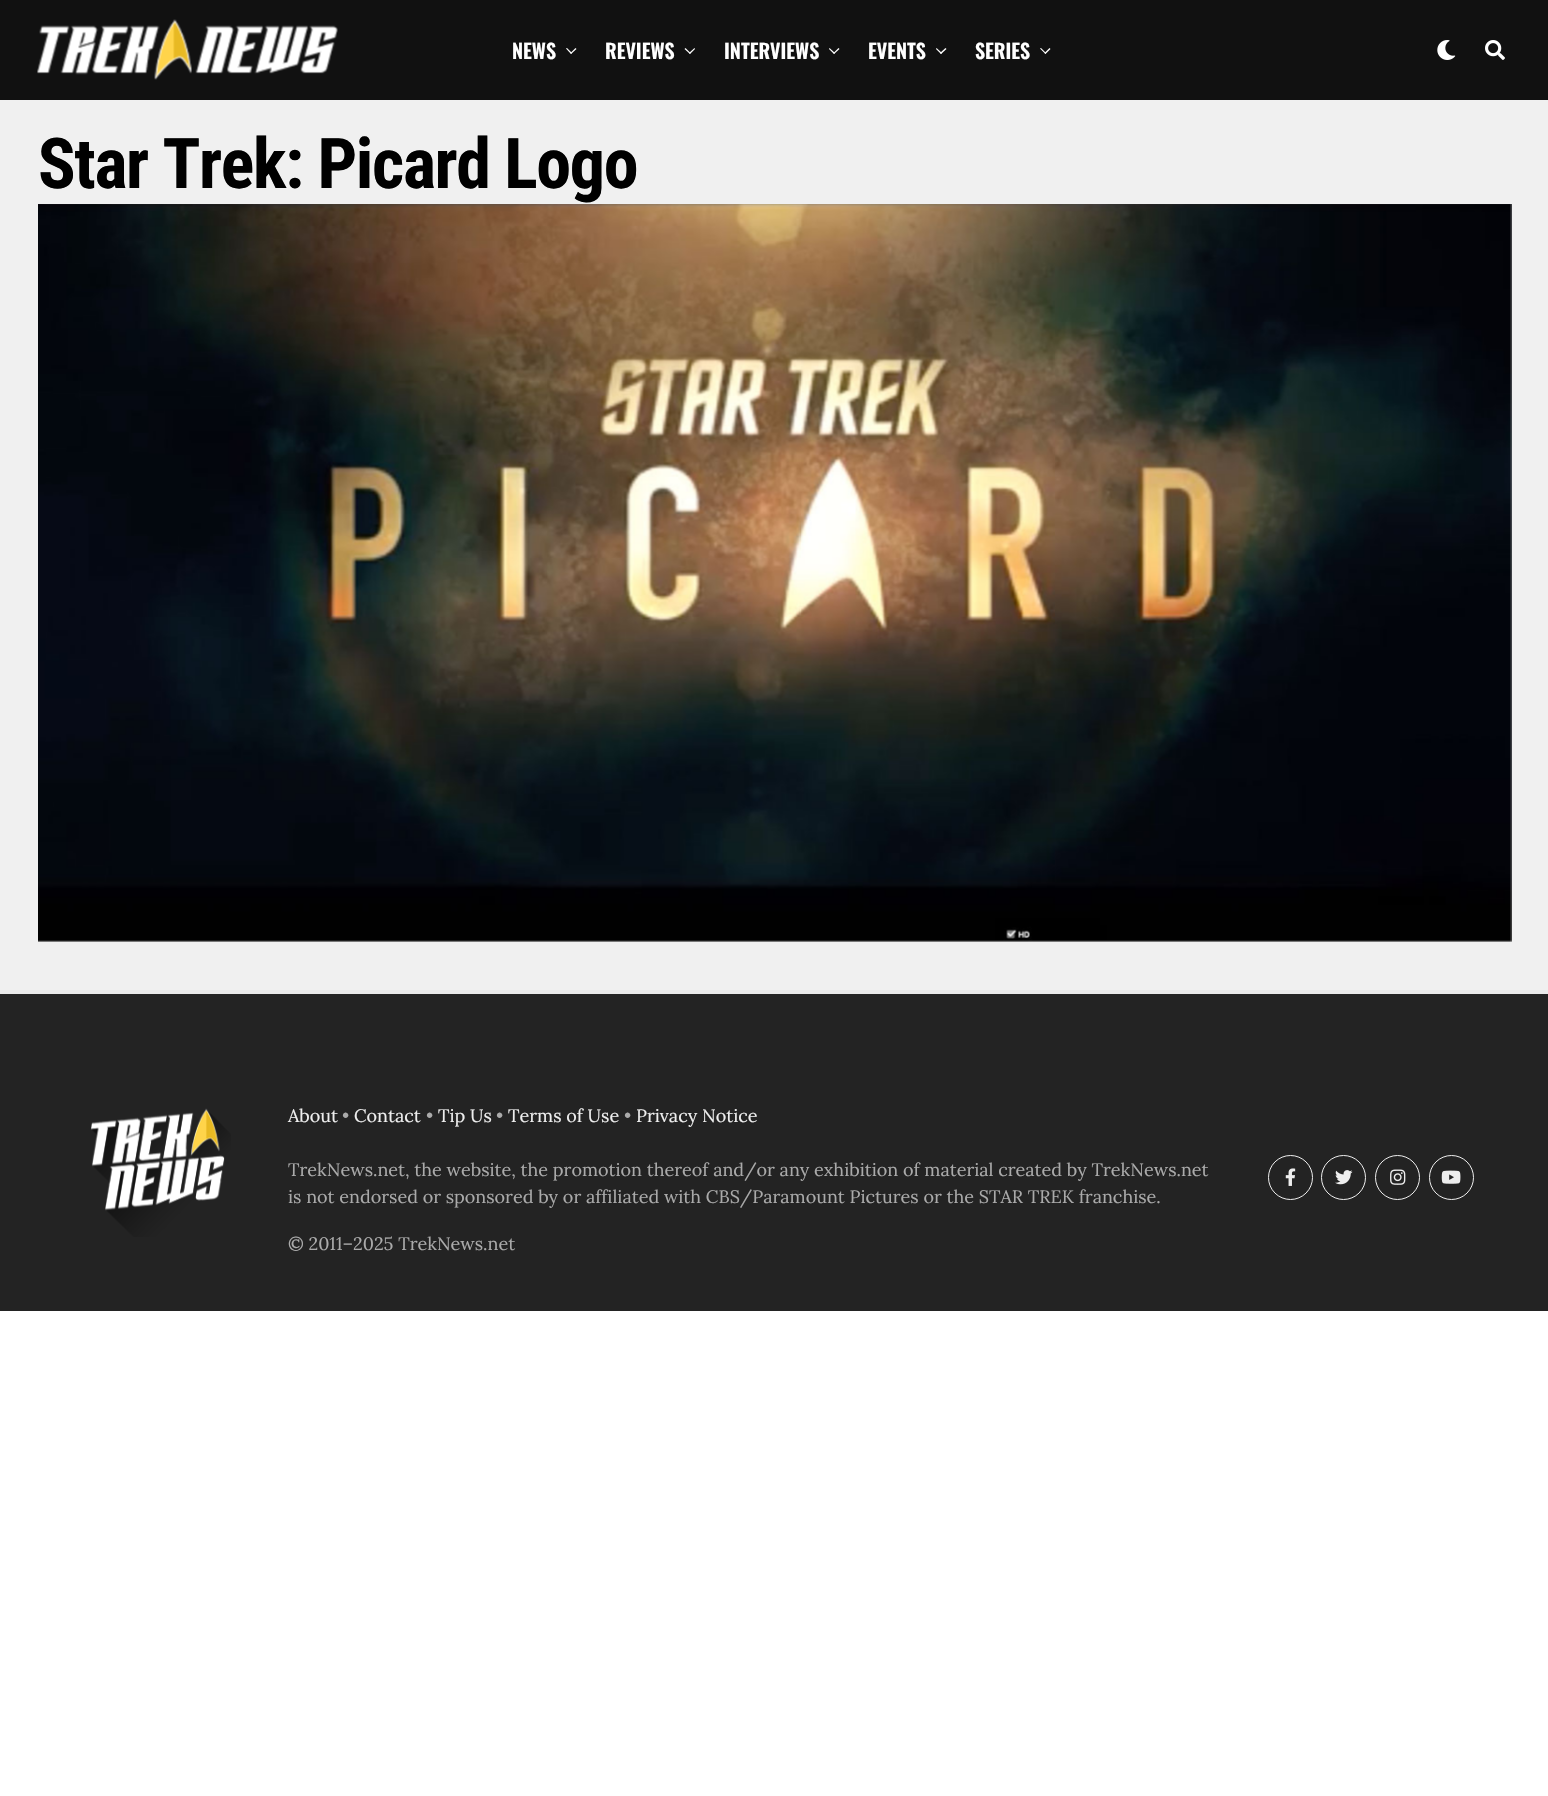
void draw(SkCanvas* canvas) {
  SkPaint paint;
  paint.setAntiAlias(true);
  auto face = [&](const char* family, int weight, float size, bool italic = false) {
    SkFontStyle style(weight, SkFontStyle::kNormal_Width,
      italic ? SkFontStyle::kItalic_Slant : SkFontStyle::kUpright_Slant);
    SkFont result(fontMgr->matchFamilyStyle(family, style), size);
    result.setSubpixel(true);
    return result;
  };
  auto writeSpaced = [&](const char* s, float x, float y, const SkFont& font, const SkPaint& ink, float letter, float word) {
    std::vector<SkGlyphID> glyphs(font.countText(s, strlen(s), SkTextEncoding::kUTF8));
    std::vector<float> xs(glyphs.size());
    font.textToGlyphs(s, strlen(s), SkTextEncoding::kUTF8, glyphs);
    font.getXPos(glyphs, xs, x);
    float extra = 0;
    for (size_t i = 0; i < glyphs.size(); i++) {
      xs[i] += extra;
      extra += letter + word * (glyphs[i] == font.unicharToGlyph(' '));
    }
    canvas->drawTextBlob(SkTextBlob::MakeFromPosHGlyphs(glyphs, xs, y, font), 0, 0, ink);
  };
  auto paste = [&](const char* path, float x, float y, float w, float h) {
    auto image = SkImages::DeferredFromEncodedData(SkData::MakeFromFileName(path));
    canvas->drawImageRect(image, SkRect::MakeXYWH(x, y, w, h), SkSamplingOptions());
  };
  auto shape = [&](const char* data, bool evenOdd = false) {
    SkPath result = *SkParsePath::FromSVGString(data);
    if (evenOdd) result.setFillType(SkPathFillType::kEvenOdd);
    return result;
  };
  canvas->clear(0xffffffff);
  paint.setColor(0xff111111);
  canvas->drawRect(SkRect::MakeXYWH(0, 0, 1548, 100), paint);
  paste("img/1.png", 37, 19, 301, 61);
  paint.setColor(0xffffffff);
  canvas->drawPath(shape("M575.5 48L576.5 49L571 54L570.5 53Z"), paint);
  canvas->drawPath(shape("M567 48L572 53L571 54L566 48.5Z"), paint);
  canvas->drawPath(shape("M694.5 48L695 49L690 54L689 53Z"), paint);
  canvas->drawPath(shape("M685.5 48L690.5 53L690 54L684.5 49Z"), paint);
  canvas->drawPath(shape("M838.5 48L839.5 49L834 54L833.5 53Z"), paint);
  canvas->drawPath(shape("M829.5 48L835 53L834 54L829 49Z"), paint);
  canvas->drawPath(shape("M945.5 48L946.5 49L941 54L940 53Z"), paint);
  canvas->drawPath(shape("M936.5 48L942 53L941 54L936 49Z"), paint);
  canvas->drawPath(shape("M1049.5 48L1050.5 49L1045.5 54L1044.5 53Z"), paint);
  canvas->drawPath(shape("M1041 48L1046 53L1045.5 54L1040 48.5Z"), paint);
  paste("img/2.png", 1437, 40, 19, 20);
  paste("img/3.png", 1485, 40, 20, 20);
  paint.setColor(0xfff0f0f0);
  canvas->drawRect(SkRect::MakeXYWH(0, 100, 1548, 890), paint);
  paste("img/4.png", 38, 204, 1474, 738);
  paint.setColor(0xff232323);
  canvas->drawRect(SkRect::MakeXYWH(0, 994, 1548, 317), paint);
  paint.setColor(0xffe9e9e9);
  canvas->drawRect(SkRect::MakeXYWH(0, 990, 1548, 4), paint);
  paste("img/5.png", 91, 1108, 140, 129);
  paint.setStroke(true);
  paint.setStrokeWidth(1);
  paint.setColor(0xffeeeeee);
  canvas->drawCircle(1290.5f, 1177.5f, 22, paint);
  paste("img/6.png", 1285, 1168, 11, 18);
  canvas->drawCircle(1343.5f, 1177.5f, 22, paint);
  paste("img/7.png", 1335, 1170, 18, 15);
  canvas->drawCircle(1397.5f, 1177.5f, 22, paint);
  paste("img/8.png", 1390, 1169, 16, 16);
  canvas->drawCircle(1451.5f, 1177.5f, 22, paint);
  paste("img/9.png", 1441, 1170, 20, 14);
  auto f0 = face("Oswald", 600, 20);
  paint.setStroke(false);
  paint.setColor(0xffffffff);
  {
    const struct { const char* s; float x, y; } items[] = {
      {"NEWS", 512, 59},
      {"REVIEWS", 605, 59},
      {"INTERVIEWS", 724, 59},
      {"EVENTS", 868, 59},
      {"SERIES", 975, 59},
    };
    for (auto [s, x, y] : items) {
      canvas->drawString(s, x, y, f0, paint);
    }
  }
  auto f1 = face("Roboto Condensed", 700, 70);
  paint.setColor(0xff000000);
  writeSpaced("Star Trek: Picard Logo", 38, 188, f1, paint, -1.4f, 0);
  auto f2 = face("Lora", 400, 18);
  paint.setColor(0xffeeeeee);
  canvas->drawString("About", 288, 1122, f2, paint);
  paint.setColor(0xffaaaaaa);
  canvas->drawString("•", 342, 1122, f2, paint);
  paint.setColor(0xffeeeeee);
  canvas->drawString("Contact", 354, 1122, f2, paint);
  paint.setColor(0xffaaaaaa);
  canvas->drawString("•", 426, 1122, f2, paint);
  paint.setColor(0xffeeeeee);
  canvas->drawString("Tip Us", 438, 1122, f2, paint);
  paint.setColor(0xffaaaaaa);
  canvas->drawString("•", 496, 1122, f2, paint);
  paint.setColor(0xffeeeeee);
  canvas->drawString("Terms of Use", 508, 1122, f2, paint);
  paint.setColor(0xffaaaaaa);
  canvas->drawString("•", 624, 1122, f2, paint);
  paint.setColor(0xffeeeeee);
  canvas->drawString("Privacy Notice", 636, 1122, f2, paint);
  paint.setColor(0xffaaaaaa);
  {
    const struct { const char* s; float x, y; } items[] = {
      {"TrekNews.net, the website, the promotion thereof and/or any exhibition of material created by TrekNews.net", 288, 1176},
      {"is not endorsed or sponsored by or affiliated with CBS/Paramount Pictures or the STAR TREK franchise.", 288, 1203},
      {"© 2011–2025 TrekNews.net", 288, 1250},
    };
    for (auto [s, x, y] : items) {
      canvas->drawString(s, x, y, f2, paint);
    }
  }
}
